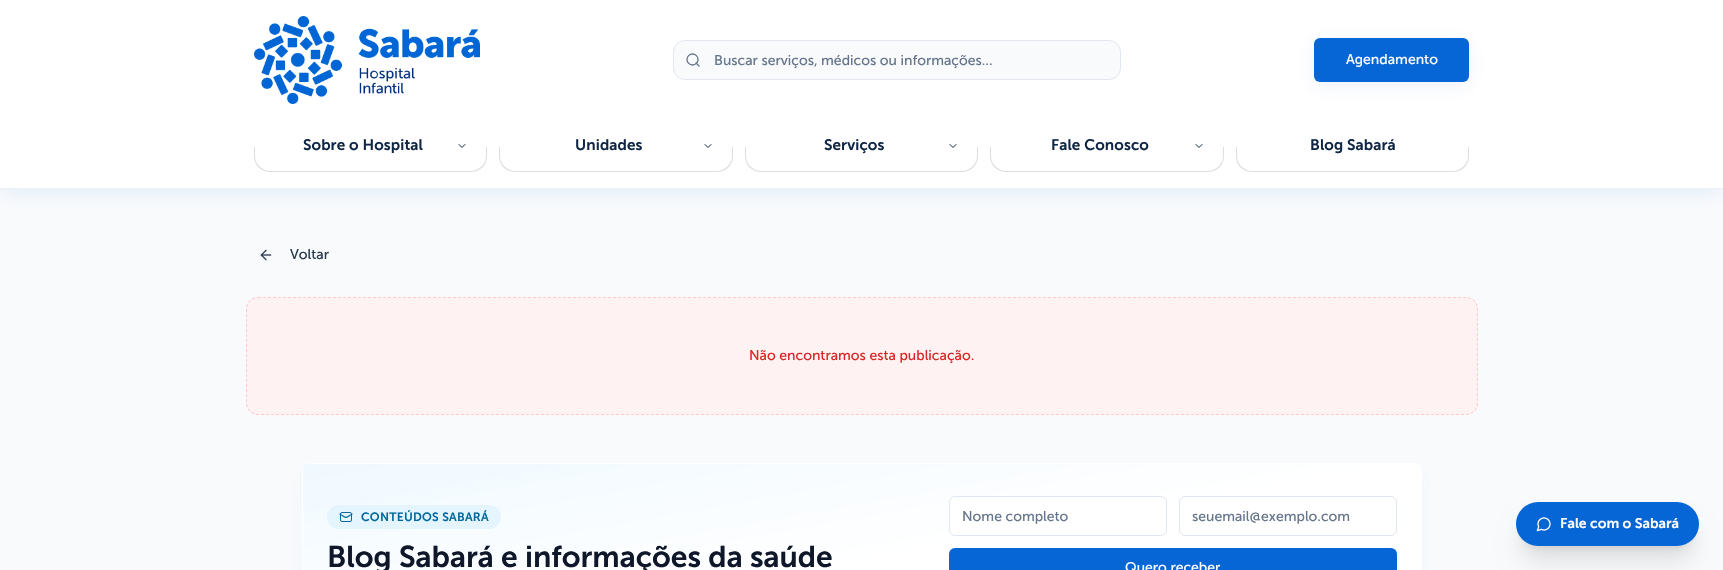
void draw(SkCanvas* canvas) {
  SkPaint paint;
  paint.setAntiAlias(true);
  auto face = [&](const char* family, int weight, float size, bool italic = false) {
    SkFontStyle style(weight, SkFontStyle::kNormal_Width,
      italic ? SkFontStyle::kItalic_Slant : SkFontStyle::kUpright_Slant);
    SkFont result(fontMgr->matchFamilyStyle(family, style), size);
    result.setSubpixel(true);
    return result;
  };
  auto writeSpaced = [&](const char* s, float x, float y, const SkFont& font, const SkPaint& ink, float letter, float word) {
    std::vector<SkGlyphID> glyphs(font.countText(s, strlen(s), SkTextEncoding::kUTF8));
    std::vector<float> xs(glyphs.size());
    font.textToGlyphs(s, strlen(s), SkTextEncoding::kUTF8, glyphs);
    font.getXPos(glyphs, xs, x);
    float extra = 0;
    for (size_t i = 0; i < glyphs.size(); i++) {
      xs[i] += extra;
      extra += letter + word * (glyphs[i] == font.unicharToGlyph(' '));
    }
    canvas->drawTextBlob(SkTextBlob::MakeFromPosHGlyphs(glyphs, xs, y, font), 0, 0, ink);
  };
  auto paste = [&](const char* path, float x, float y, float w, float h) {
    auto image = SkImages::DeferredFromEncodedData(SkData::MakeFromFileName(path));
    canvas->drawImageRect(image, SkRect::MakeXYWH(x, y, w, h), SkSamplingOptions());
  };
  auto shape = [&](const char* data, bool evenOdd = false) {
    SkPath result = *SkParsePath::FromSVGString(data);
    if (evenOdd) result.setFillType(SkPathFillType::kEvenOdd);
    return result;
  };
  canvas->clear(0xfff8fafc);
  paint.setColor(0x1a0666d5);
  paint.setMaskFilter(SkMaskFilter::MakeBlur(kNormal_SkBlurStyle, 10));
  canvas->drawRect(SkRect::MakeXYWH(2, 6, 1719, 185), paint);
  paint.setMaskFilter(nullptr);
  paint.setColor(0xffffffff);
  canvas->drawRect(SkRect::MakeXYWH(0, 0, 1723, 188), paint);
  paint.setColor(0xffedf1f5);
  canvas->drawRect(SkRect::MakeXYWH(0, 188, 1723, 1), paint);
  paste("img/1.png", 254, 16, 226, 88);
  paint.setColor(0xfff9fafb);
  canvas->drawRoundRect(SkRect::MakeXYWH(673.5f, 40.5f, 447, 39), 11.5f, 11.5f, paint);
  paint.setStroke(true);
  paint.setStrokeWidth(1);
  paint.setColor(0xffe1e7ef);
  canvas->drawRoundRect(SkRect::MakeXYWH(673.5f, 40.5f, 447, 39), 11.5f, 11.5f, paint);
  paint.setStrokeWidth(1.3f);
  paint.setColor(0xff65758b);
  canvas->drawCircle(692.5f, 59.5f, 5.5f, paint);
  paint.setStrokeCap(SkPaint::kRound_Cap);
  paint.setStrokeJoin(SkPaint::kRound_Join);
  canvas->drawPath(shape("M699 66L696 63"), paint);
  paint.setStroke(false);
  paint.setColor(0x1a0666d5);
  paint.setMaskFilter(SkMaskFilter::MakeBlur(kNormal_SkBlurStyle, 10));
  canvas->drawRoundRect(SkRect::MakeXYWH(1316, 44, 151, 40), 4, 4, paint);
  paint.setMaskFilter(nullptr);
  paint.setColor(0xff0666d5);
  canvas->drawRoundRect(SkRect::MakeXYWH(1314, 38, 155, 44), 6, 6, paint);
  paint.setColor(0xffdbdfe3);
  canvas->drawPath(shape("M254 147H487V156C487 165 480 172 471 172H270C261 172 254 165 254 156ZM255 147H486V156C486 164 479 171 471 171H270C262 171 255 164 255 156Z", true), paint);
  paint.setStroke(true);
  paint.setStrokeWidth(1);
  paint.setColor(0xff0f2745);
  canvas->drawPath(shape("M459 144.5L462 147.5L465 144.5"), paint);
  paint.setStroke(false);
  paint.setColor(0xffdbdfe3);
  canvas->drawPath(shape("M499 147H733V156C733 165 726 172 717 172H515C506 172 499 165 499 156ZM500 147H732V156C732 164 725 171 717 171H515C507 171 500 164 500 156Z", true), paint);
  paint.setStroke(true);
  paint.setColor(0xff0f2745);
  canvas->drawPath(shape("M705 144.5L708 147.5L711 144.5"), paint);
  paint.setStroke(false);
  paint.setColor(0xffdbdfe3);
  canvas->drawPath(shape("M745 147H978V156C978 165 971 172 962 172H761C752 172 745 165 745 156ZM746 147H977V156C977 164 970 171 962 171H761C753 171 746 164 746 156Z", true), paint);
  paint.setStroke(true);
  paint.setColor(0xff0f2745);
  canvas->drawPath(shape("M950 144.5L953 147.5L956 144.5"), paint);
  paint.setStroke(false);
  paint.setColor(0xffdbdfe3);
  canvas->drawPath(shape("M990 147H1224V156C1224 165 1217 172 1208 172H1006C997 172 990 165 990 156ZM991 147H1223V156C1223 164 1216 171 1208 171H1006C998 171 991 164 991 156Z", true), paint);
  paint.setStroke(true);
  paint.setColor(0xff0f2745);
  canvas->drawPath(shape("M1196 144.5L1199 147.5L1202 144.5"), paint);
  paint.setStroke(false);
  paint.setColor(0xffdbdfe3);
  canvas->drawPath(shape("M1236 147H1469V156C1469 165 1462 172 1453 172H1252C1243 172 1236 165 1236 156ZM1237 147H1468V156C1468 164 1461 171 1453 171H1252C1244 171 1237 164 1237 156Z", true), paint);
  paste("img/2.png", 260, 249, 12, 12);
  paint.setColor(0xfffef2f2);
  canvas->drawRoundRect(SkRect::MakeXYWH(246, 297, 1232, 118), 12, 12, paint);
  paint.setStroke(true);
  paint.setStrokeCap(SkPaint::kButt_Cap);
  paint.setStrokeJoin(SkPaint::kMiter_Join);
  paint.setColor(0xfffecaca);
  paint.setPathEffect(SkDashPathEffect::Make({{3, 2}}, 0));
  canvas->drawPath(shape("M258 297.5H1466C1472.5 297.5 1477.5 302.5 1477.5 309V403C1477.5 409.5 1472.5 414.5 1466 414.5H258C251.5 414.5 246.5 409.5 246.5 403V309C246.5 302.5 251.5 297.5 258 297.5Z"), paint);
  paint.setPathEffect(nullptr);
  paint.setStroke(false);
  paint.setColor(0x99e0f2fe);
  paint.setMaskFilter(SkMaskFilter::MakeBlur(kNormal_SkBlurStyle, 7.5f));
  canvas->drawRoundRect(SkRect::MakeXYWH(305, 476, 1114, 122), 5, 5, paint);
  paint.setMaskFilter(nullptr);
  paint.setColor(0xffffffff);
  canvas->drawRoundRect(SkRect::MakeXYWH(302, 463, 1120, 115), 8, 8, paint);
  canvas->save();
  canvas->clipPath(shape("M310 463H1414C1418.5 463 1422 466.5 1422 471V657C1422 661.5 1418.5 665 1414 665H310C305.5 665 302 661.5 302 657V471C302 466.5 305.5 463 310 463Z"), true);
  {
    const SkColor colors[] = {0xfff0f9ff, 0xffffffff, 0xffffffff};
    const float stops[] = {0, 0.5f, 1};
    const SkPoint ends[] = {{827, 370}, {897, 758}};
    paint.setShader(SkGradientShader::MakeLinear(ends, colors, stops, 3, SkTileMode::kClamp));
    paint.setAlpha(255);
  }
  canvas->drawRect(SkRect::MakeXYWH(303, 464, 1118, 106), paint);
  canvas->restore();
  paint.setShader(nullptr);
  paint.setColor(0xcce0f2fe);
  canvas->drawRoundRect(SkRect::MakeXYWH(327, 505, 174, 24), 12, 12, paint);
  paint.setStroke(true);
  paint.setColor(0xff0369a1);
  canvas->drawRoundRect(SkRect::MakeXYWH(340.5f, 512.5f, 11, 9), 1.5f, 1.5f, paint);
  paint.setStrokeWidth(1.2f);
  paint.setStrokeCap(SkPaint::kRound_Cap);
  paint.setStrokeJoin(SkPaint::kRound_Join);
  canvas->drawPath(shape("M352 514C344.5 518.5 347.5 518.5 340 514"), paint);
  paint.setStroke(false);
  paint.setColor(0xffffffff);
  canvas->drawRoundRect(SkRect::MakeXYWH(949.5f, 496.5f, 217, 39), 5.5f, 5.5f, paint);
  paint.setStroke(true);
  paint.setStrokeWidth(1);
  paint.setStrokeCap(SkPaint::kButt_Cap);
  paint.setStrokeJoin(SkPaint::kMiter_Join);
  paint.setColor(0xffe1e7ef);
  canvas->drawRoundRect(SkRect::MakeXYWH(949.5f, 496.5f, 217, 39), 5.5f, 5.5f, paint);
  canvas->drawRoundRect(SkRect::MakeXYWH(1179.5f, 496.5f, 217, 39), 5.5f, 5.5f, paint);
  paint.setStroke(false);
  paint.setColor(0xff0666d5);
  canvas->drawRoundRect(SkRect::MakeXYWH(949, 548, 448, 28), 6, 6, paint);
  paint.setColor(0x1a000000);
  paint.setMaskFilter(SkMaskFilter::MakeBlur(kNormal_SkBlurStyle, 5));
  canvas->drawRoundRect(SkRect::MakeXYWH(1522, 516, 171, 32), 16, 16, paint);
  paint.setMaskFilter(nullptr);
  paint.setMaskFilter(SkMaskFilter::MakeBlur(kNormal_SkBlurStyle, 12.5f));
  canvas->drawRoundRect(SkRect::MakeXYWH(1521, 527, 173, 34), 17, 17, paint);
  paint.setMaskFilter(nullptr);
  paint.setColor(0xff0766d5);
  canvas->drawRoundRect(SkRect::MakeXYWH(1516, 502, 183, 44), 22, 22, paint);
  paste("img/3.png", 1536, 517, 15, 15);
  auto f0 = face("Museo Sans", 400, 14);
  paint.setColor(0xff65758b);
  canvas->drawString("Buscar serviços, médicos ou informações...", 714, 65, f0, paint);
  paint.setColor(0xffffffff);
  canvas->drawString("Agendamento", 1346, 64, f0, paint);
  auto f1 = face("Museo Sans", 600, 15.25f);
  paint.setColor(0xff0f2745);
  {
    const struct { const char* s; float x, y; } items[] = {
      {"Sobre o Hospital", 303, 150},
      {"Unidades", 575, 150},
      {"Serviços", 824, 150},
      {"Fale Conosco", 1051, 150},
      {"Blog Sabará", 1310, 150},
    };
    for (auto [s, x, y] : items) {
      writeSpaced(s, x, y, f1, paint, 0.1f, 0);
    }
  }
  paint.setColor(0xff28394d);
  canvas->drawString("Voltar", 290, 259, f0, paint);
  paint.setColor(0xffdc2626);
  canvas->drawString("Não encontramos esta publicação.", 749, 360, f0, paint);
  auto f2 = face("Museo Sans", 600, 12);
  paint.setColor(0xff0369a1);
  writeSpaced("CONTEÚDOS SABARÁ", 361, 521, f2, paint, 0.25f, 0);
  auto f3 = face("Museo Sans", 600, 30);
  paint.setColor(0xff0f172a);
  canvas->drawString("Blog Sabará e informações da saúde", 327, 567, f3, paint);
  paint.setColor(0xff65758b);
  canvas->drawString("Nome completo", 962, 521, f0, paint);
  canvas->drawString("seuemail@exemplo.com", 1192, 521, f0, paint);
  paint.setColor(0xffffffff);
  canvas->drawString("Quero receber", 1125, 572, f0, paint);
  auto f4 = face("Museo Sans", 600, 14);
  canvas->drawString("Fale com o Sabará", 1560, 528, f4, paint);
}
